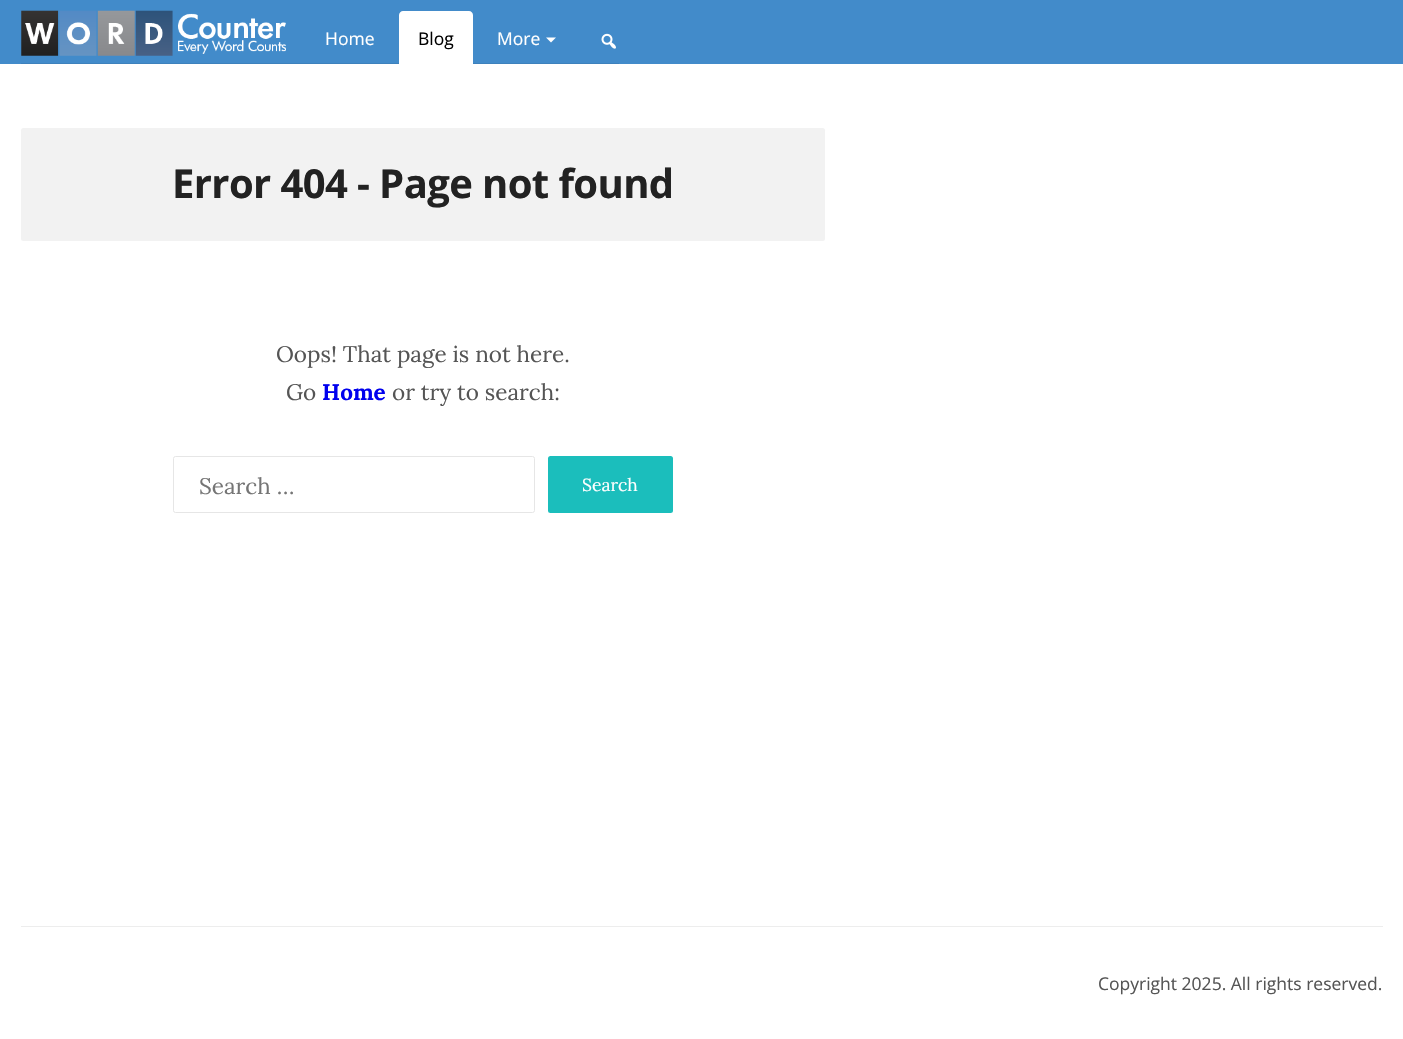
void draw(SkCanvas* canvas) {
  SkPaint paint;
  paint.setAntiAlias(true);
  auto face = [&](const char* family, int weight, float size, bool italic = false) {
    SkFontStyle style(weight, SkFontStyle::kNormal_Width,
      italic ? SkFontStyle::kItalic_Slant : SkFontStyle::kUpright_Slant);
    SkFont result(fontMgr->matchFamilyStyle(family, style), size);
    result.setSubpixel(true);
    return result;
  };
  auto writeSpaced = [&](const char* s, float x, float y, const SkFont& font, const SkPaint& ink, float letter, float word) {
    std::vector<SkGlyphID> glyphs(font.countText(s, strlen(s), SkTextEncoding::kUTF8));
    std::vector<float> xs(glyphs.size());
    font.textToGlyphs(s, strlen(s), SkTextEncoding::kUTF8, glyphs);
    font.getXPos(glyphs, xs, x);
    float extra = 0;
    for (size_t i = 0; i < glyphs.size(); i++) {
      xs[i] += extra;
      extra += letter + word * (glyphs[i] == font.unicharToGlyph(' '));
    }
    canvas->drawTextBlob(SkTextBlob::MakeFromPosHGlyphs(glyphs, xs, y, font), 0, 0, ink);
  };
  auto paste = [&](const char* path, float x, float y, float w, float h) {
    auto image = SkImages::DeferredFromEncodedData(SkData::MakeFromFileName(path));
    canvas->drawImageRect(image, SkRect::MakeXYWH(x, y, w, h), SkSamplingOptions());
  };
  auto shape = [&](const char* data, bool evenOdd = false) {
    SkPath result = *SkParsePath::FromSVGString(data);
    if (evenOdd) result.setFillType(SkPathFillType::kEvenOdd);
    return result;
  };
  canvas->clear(0xffffffff);
  paint.setColor(0xff428bca);
  canvas->drawRect(SkRect::MakeXYWH(0, 0, 1403, 64), paint);
  paint.setColor(0xff3d81bc);
  canvas->drawRect(SkRect::MakeXYWH(21, 63, 598, 1), paint);
  paste("img/1.png", 21, 10, 265, 46);
  paint.setColor(0xffffffff);
  canvas->drawPath(shape("M403 11H469C471 11 473 13 473 15V64H399V15C399 13 401 11 403 11Z"), paint);
  canvas->drawPath(shape("M546 37.5H556L551 42.5Z"), paint);
  paste("img/2.png", 601, 33, 15, 16);
  paint.setColor(0xfff2f2f2);
  canvas->drawRoundRect(SkRect::MakeXYWH(21, 128, 804, 113), 2.5f, 2.5f, paint);
  paint.setStroke(true);
  paint.setStrokeWidth(1);
  paint.setColor(0xffe6e6e6);
  canvas->drawRoundRect(SkRect::MakeXYWH(173.5f, 456.5f, 361, 56), 2, 2, paint);
  paint.setStroke(false);
  paint.setColor(0xff1bbebc);
  canvas->drawRoundRect(SkRect::MakeXYWH(548, 456, 125, 57), 2.5f, 2.5f, paint);
  paint.setColor(0xffededed);
  canvas->drawRect(SkRect::MakeXYWH(21, 926, 1362, 1), paint);
  auto f0 = face("Open Sans", 400, 17.5f);
  paint.setColor(0xffffffff);
  canvas->drawString("Home", 325, 45, f0, paint);
  paint.setColor(0xff000000);
  canvas->drawString("Blog", 418, 45, f0, paint);
  paint.setColor(0xffffffff);
  canvas->drawString("More", 497, 45, f0, paint);
  auto f1 = face("Open Sans", 700, 40);
  paint.setColor(0xff222222);
  writeSpaced("Error 404 - Page not found", 172, 198, f1, paint, -0.6f, 0);
  auto f2 = face("Lora", 400, 22.5f);
  paint.setColor(0xff555555);
  canvas->drawString("Oops! That page is not here.", 276, 362, f2, paint);
  canvas->drawString("Go", 286, 400, f2, paint);
  auto f3 = face("Lora", 700, 22.5f);
  paint.setColor(0xff0000ee);
  canvas->drawString("Home", 322, 400, f3, paint);
  paint.setColor(0xff555555);
  canvas->drawString("or try to search:", 392, 400, f2, paint);
  paint.setColor(0xff757575);
  canvas->drawString("Search …", 199, 494, f2, paint);
  auto f4 = face("Lora", 400, 17.5f);
  paint.setColor(0xffffffff);
  canvas->drawString("Search", 582, 491, f4, paint);
  paint.setColor(0xff555555);
  canvas->drawString("Copyright 2025. All rights reserved.", 1098, 990, f0, paint);
}
